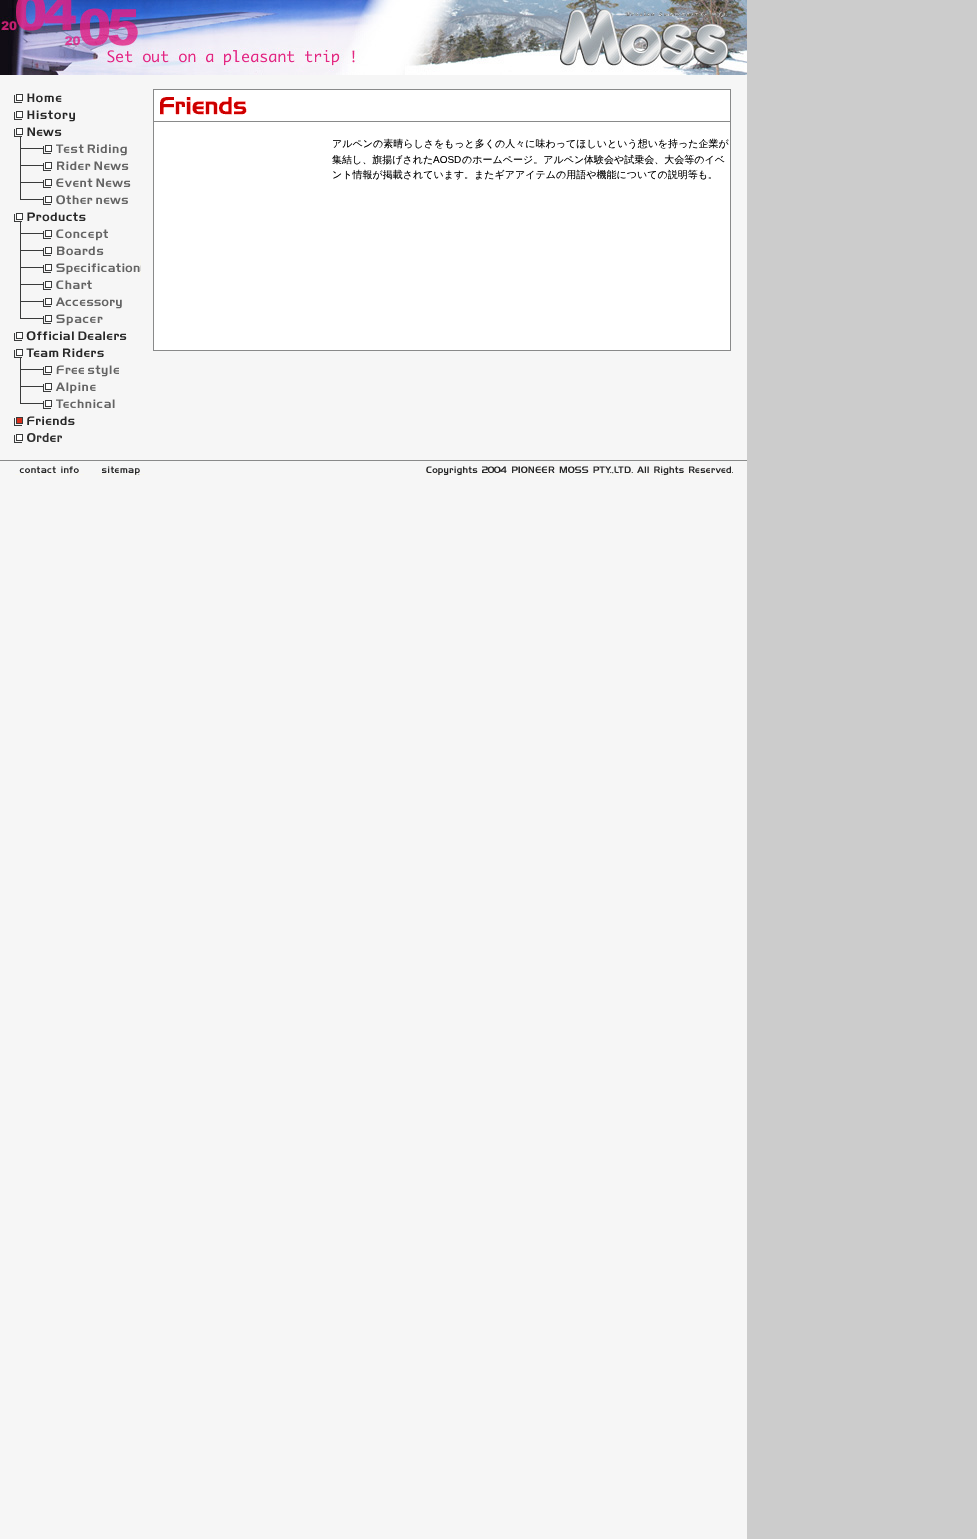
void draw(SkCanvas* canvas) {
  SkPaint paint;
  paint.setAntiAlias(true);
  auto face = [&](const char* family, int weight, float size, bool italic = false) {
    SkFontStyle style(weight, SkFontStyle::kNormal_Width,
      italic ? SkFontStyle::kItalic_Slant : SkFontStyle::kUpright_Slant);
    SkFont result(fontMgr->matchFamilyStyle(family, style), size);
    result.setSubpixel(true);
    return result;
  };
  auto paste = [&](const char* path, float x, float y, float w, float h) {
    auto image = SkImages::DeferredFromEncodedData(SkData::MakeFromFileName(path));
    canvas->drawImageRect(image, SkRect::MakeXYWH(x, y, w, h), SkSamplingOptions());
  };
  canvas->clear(0xffcccccc);
  paint.setColor(0xfff6f6f6);
  canvas->drawRect(SkRect::MakeXYWH(0, 75, 747, 1464), paint);
  paste("img/1.png", 0, 0, 747, 75);
  paste("img/2.png", 14, 93, 48, 10);
  paste("img/3.png", 14, 110, 61, 12);
  paste("img/4.png", 14, 127, 48, 13);
  paste("img/5.png", 20, 140, 107, 17);
  paste("img/6.png", 20, 157, 109, 17);
  paste("img/7.png", 20, 174, 111, 17);
  paste("img/8.png", 20, 191, 108, 14);
  paste("img/9.png", 14, 212, 72, 13);
  paste("img/10.png", 20, 225, 88, 17);
  paste("img/11.png", 20, 242, 84, 17);
  paste("img/12.png", 20, 259, 121, 17);
  paste("img/13.png", 20, 276, 72, 17);
  paste("img/14.png", 20, 293, 102, 17);
  paste("img/15.png", 20, 310, 83, 16);
  paste("img/16.png", 14, 331, 113, 10);
  paste("img/17.png", 14, 348, 90, 13);
  paste("img/18.png", 20, 361, 99, 17);
  paste("img/19.png", 20, 378, 76, 17);
  paste("img/20.png", 20, 395, 95, 14);
  paste("img/21.png", 14, 416, 61, 10);
  paste("img/22.png", 14, 433, 48, 10);
  paint.setColor(0xffffffff);
  canvas->drawRect(SkRect::MakeXYWH(153.5f, 89.5f, 577, 32), paint);
  paint.setStroke(true);
  paint.setStrokeWidth(1);
  paint.setColor(0xff898a8a);
  canvas->drawRect(SkRect::MakeXYWH(153.5f, 89.5f, 577, 32), paint);
  paste("img/23.png", 160, 97, 87, 18);
  paint.setStroke(false);
  {
    const struct { float x, y, w, h; SkColor color; } items[] = {
      {154, 122, 576, 228, 0xffffffff},
      {730, 122, 1, 229, 0xff898a8a},
      {153, 350, 578, 1, 0xff898a8a},
      {153, 122, 1, 229, 0xff898a8a},
      {0, 460, 747, 1, 0xff898a8a},
    };
    for (auto [x, y, w, h, color] : items) {
      paint.setColor(color);
      canvas->drawRect(SkRect::MakeXYWH(x, y, w, h), paint);
    }
  }
  paste("img/24.png", 15, 466, 69, 9);
  paste("img/25.png", 98, 466, 46, 9);
  paste("img/26.png", 426, 466, 307, 9);
  auto f0 = face("WenQuanYi Zen Hei", 500, 10);
  paint.setColor(0xff000000);
  canvas->drawString("アルペンの素晴らしさをもっと多くの人々に味わってほしいという想いを持った企業が", 332, 147, f0, paint);
  canvas->drawString("集結し、旗揚げされた", 332, 163, f0, paint);
  auto f1 = face("Liberation Sans", 400, 10);
  canvas->drawString("AOSD", 433, 163, f1, paint);
  canvas->drawString("のホームページ。アルペン体験会や試乗会、大会等のイベ", 462, 163, f0, paint);
  canvas->drawString("ント情報が掲載されています。またギアアイテムの用語や機能についての説明等も。", 332, 178, f0, paint);
}
